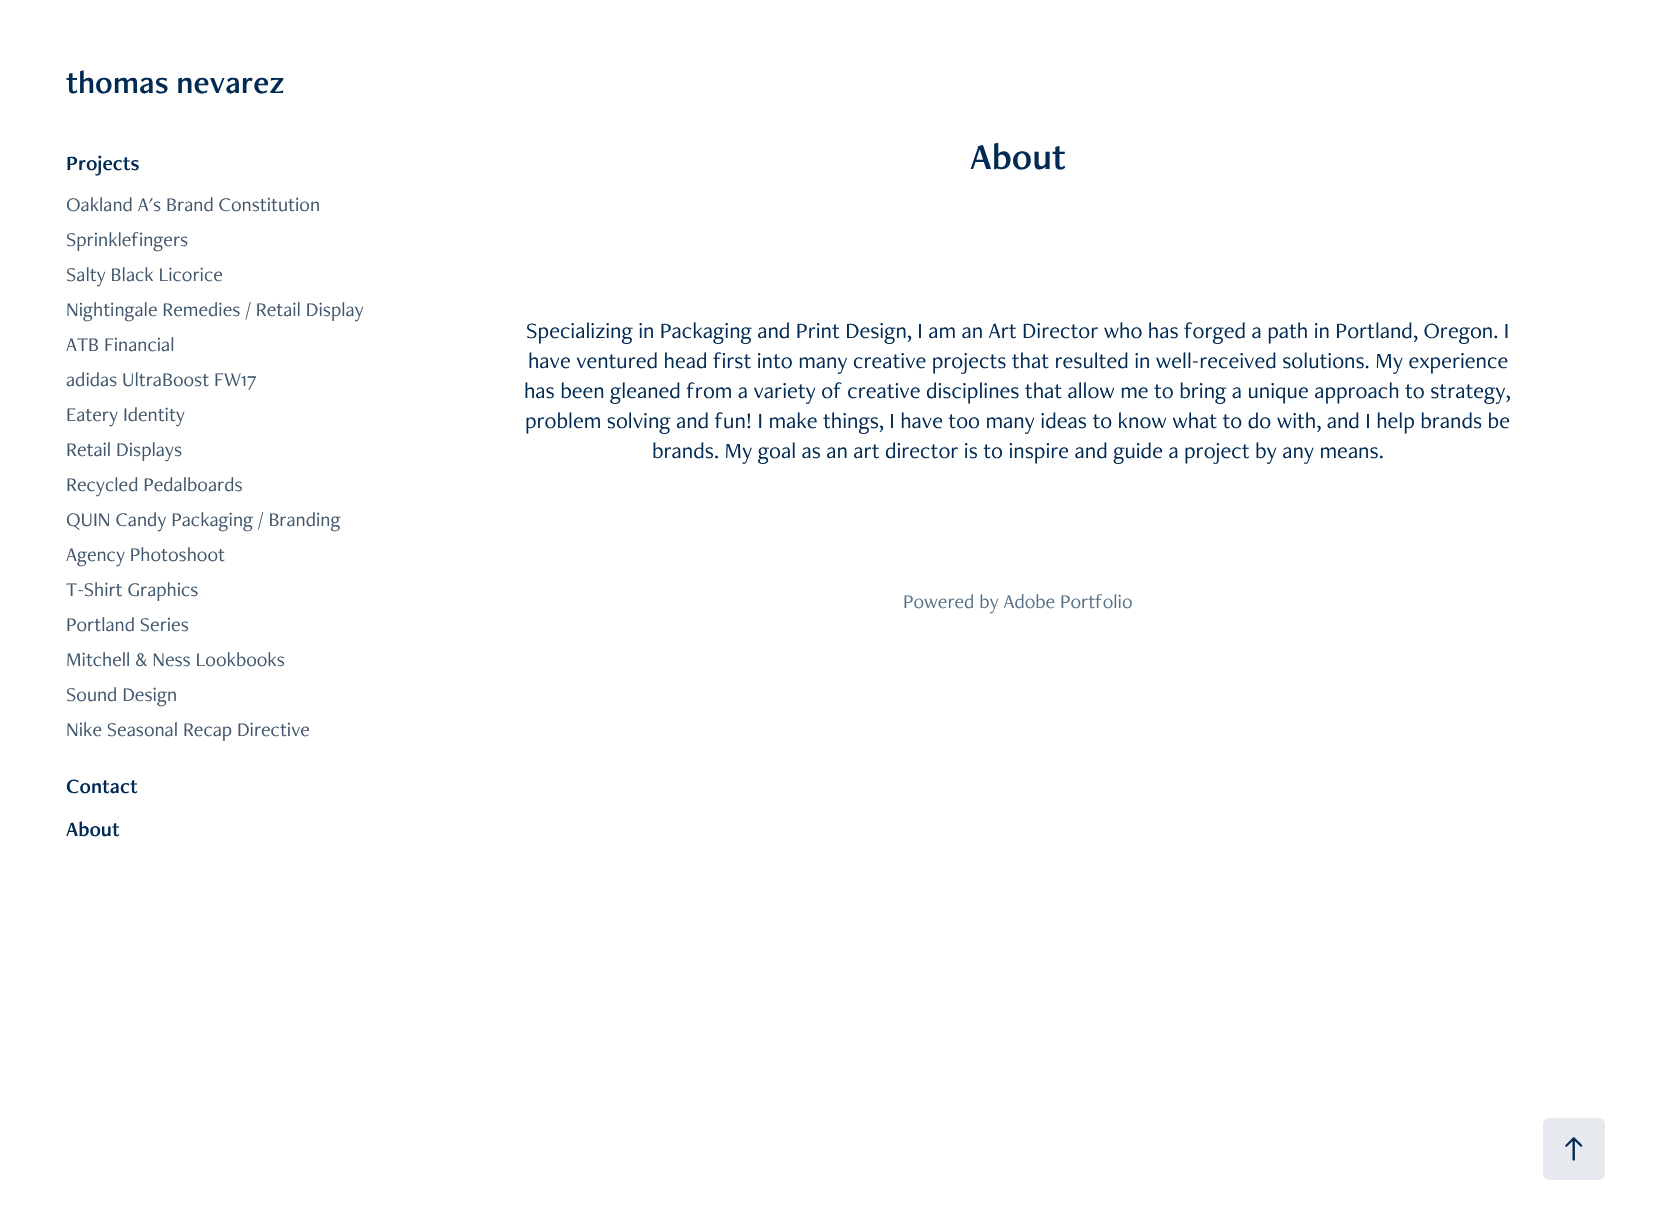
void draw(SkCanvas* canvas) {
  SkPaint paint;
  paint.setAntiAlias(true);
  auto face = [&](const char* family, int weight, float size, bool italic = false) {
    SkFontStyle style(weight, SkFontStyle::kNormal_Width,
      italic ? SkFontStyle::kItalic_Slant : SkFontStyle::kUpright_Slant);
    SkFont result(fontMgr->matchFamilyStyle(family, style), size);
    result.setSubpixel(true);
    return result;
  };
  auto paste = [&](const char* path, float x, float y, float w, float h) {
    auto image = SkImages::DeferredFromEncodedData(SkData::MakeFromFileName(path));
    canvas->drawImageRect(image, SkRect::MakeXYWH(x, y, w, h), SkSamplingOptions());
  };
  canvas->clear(0xffffffff);
  paint.setColor(0xffe6eaee);
  canvas->drawRoundRect(SkRect::MakeXYWH(1543, 1118, 62, 62), 6, 6, paint);
  paste("img/1.png", 1565, 1137, 18, 24);
  auto f0 = face("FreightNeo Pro", 400, 32.5f);
  paint.setColor(0xff012b55);
  canvas->drawString("thomas nevarez", 66, 93, f0, paint);
  auto f1 = face("FreightNeo Pro", 400, 21);
  canvas->drawString("Projects", 66, 170, f1, paint);
  auto f2 = face("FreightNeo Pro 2", 400, 20);
  paint.setColor(0xff41576d);
  {
    const struct { const char* s; float x, y; } items[] = {
      {"Oakland A's Brand Constitution", 66, 211},
      {"Sprinklefingers", 66, 246},
      {"Salty Black Licorice", 66, 281},
      {"Nightingale Remedies / Retail Display", 66, 316},
      {"ATB Financial", 66, 351},
      {"adidas UltraBoost FW17", 66, 386},
      {"Eatery Identity", 66, 421},
      {"Retail Displays", 66, 456},
      {"Recycled Pedalboards", 66, 491},
      {"QUIN Candy Packaging / Branding", 66, 526},
      {"Agency Photoshoot", 66, 561},
      {"T-Shirt Graphics", 66, 596},
      {"Portland Series", 66, 631},
      {"Mitchell & Ness Lookbooks", 66, 666},
      {"Sound Design", 66, 701},
      {"Nike Seasonal Recap Directive", 66, 736},
    };
    for (auto [s, x, y] : items) {
      canvas->drawString(s, x, y, f2, paint);
    }
  }
  paint.setColor(0xff012b55);
  canvas->drawString("Contact", 66, 793, f1, paint);
  canvas->drawString("About", 66, 836, f1, paint);
  auto f3 = face("FreightNeo Pro", 400, 37.5f);
  canvas->drawString("About", 970, 169, f3, paint);
  auto f4 = face("FreightNeo Pro 2", 400, 22.5f);
  {
    const struct { const char* s; float x, y; } items[] = {
      {"Specializing in Packaging and Print Design, I am an Art Director who has forged a path in Portland, Oregon. I", 526, 338},
      {"have ventured head first into many creative projects that resulted in well-received solutions. My experience", 528, 368},
      {"has been gleaned from a variety of creative disciplines that allow me to bring a unique approach to strategy,", 524, 398},
      {"problem solving and fun! I make things, I have too many ideas to know what to do with, and I help brands be", 525, 428},
      {"brands. My goal as an art director is to inspire and guide a project by any means.", 652, 458},
    };
    for (auto [s, x, y] : items) {
      canvas->drawString(s, x, y, f4, paint);
    }
  }
  paint.setColor(0xff597188);
  canvas->drawString("Powered by Adobe Portfolio", 903, 608, f2, paint);
}
